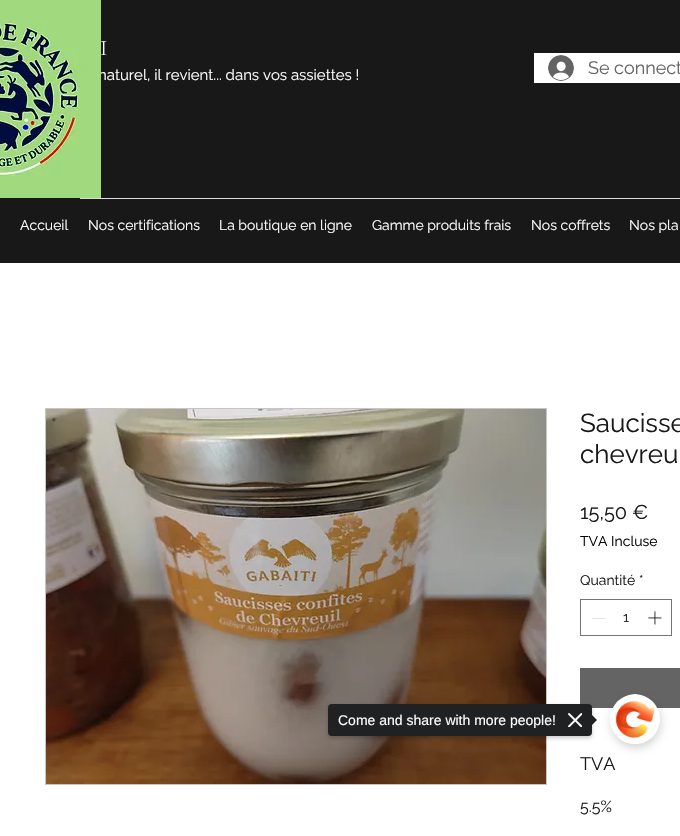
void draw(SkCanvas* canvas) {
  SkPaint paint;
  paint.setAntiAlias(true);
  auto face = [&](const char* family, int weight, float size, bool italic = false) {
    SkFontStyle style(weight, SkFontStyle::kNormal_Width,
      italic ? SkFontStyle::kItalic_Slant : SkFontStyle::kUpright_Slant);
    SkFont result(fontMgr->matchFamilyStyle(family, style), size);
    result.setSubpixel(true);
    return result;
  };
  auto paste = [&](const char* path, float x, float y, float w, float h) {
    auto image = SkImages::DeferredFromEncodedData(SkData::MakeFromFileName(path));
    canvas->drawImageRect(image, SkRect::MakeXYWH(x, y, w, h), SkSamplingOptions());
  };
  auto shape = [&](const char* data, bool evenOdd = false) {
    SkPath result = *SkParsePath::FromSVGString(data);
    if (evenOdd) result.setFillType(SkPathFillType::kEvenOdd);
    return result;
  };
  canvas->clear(0xffffffff);
  paint.setColor(0xff181818);
  canvas->drawRect(SkRect::MakeXYWH(0, 0, 680, 263), paint);
  paint.setColor(0xffffffff);
  canvas->drawRect(SkRect::MakeXYWH(534, 53, 146, 30), paint);
  paste("img/2.png", 548, 55, 26, 26);
  paint.setColor(0xffdcdcdc);
  canvas->drawRect(SkRect::MakeXYWH(80, 198, 600, 1), paint);
  paint.setStroke(true);
  paint.setStrokeWidth(1);
  paint.setColor(0xffc5c5c5);
  canvas->drawRect(SkRect::MakeXYWH(45.5f, 408.5f, 501, 376), paint);
  paste("img/3.png", 46, 409, 500, 375);
  paint.setColor(0xff747474);
  canvas->drawRect(SkRect::MakeXYWH(580.5f, 599.5f, 91, 36), paint);
  paint.setStroke(false);
  paint.setColor(0xffe3e3e3);
  canvas->drawRect(SkRect::MakeXYWH(592, 618, 13, 1), paint);
  paste("img/4.png", 648, 611, 14, 14);
  paint.setColor(0xff646464);
  canvas->drawRect(SkRect::MakeXYWH(580, 668, 100, 40), paint);
  canvas->save();
  canvas->clipPath(shape("M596 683H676V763H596ZM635 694C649 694 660 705 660 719C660 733 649 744 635 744C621 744 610 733 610 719C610 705 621 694 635 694Z", true), true);
  paint.setColor(0x2b000000);
  paint.setMaskFilter(SkMaskFilter::MakeBlur(kNormal_SkBlurStyle, 4.5f));
  canvas->drawRoundRect(SkRect::MakeXYWH(611, 698, 50, 50), 25, 25, paint);
  paint.setMaskFilter(nullptr);
  canvas->restore();
  paint.setColor(0x38000000);
  paint.setMaskFilter(SkMaskFilter::MakeBlur(kNormal_SkBlurStyle, 2));
  canvas->drawRoundRect(SkRect::MakeXYWH(328, 706, 264, 32), 4, 4, paint);
  paint.setMaskFilter(nullptr);
  paint.setColor(0xff202123);
  canvas->drawRoundRect(SkRect::MakeXYWH(328, 704, 264, 32), 4, 4, paint);
  paste("img/5.png", 568, 713, 14, 14);
  canvas->drawPath(shape("M590 727V713L597 720Z"), paint);
  paste("img/6.png", 613, 694, 44, 50);
  auto f0 = face("Cormorant Garamond", 300, 22);
  paint.setColor(0xffffffff);
  canvas->drawString("I", 100, 55, f0, paint);
  auto f1 = face("Raleway", 400, 15);
  canvas->drawString("naturel, il revient... dans vos assiettes !", 98, 80, f1, paint);
  paste("img/1.png", 0, 0, 101, 198);
  auto f2 = face("Raleway", 400, 18);
  paint.setColor(0xff646464);
  canvas->drawString("Se connect", 588, 74, f2, paint);
  auto f3 = face("Raleway", 400, 14);
  paint.setColor(0xffffffff);
  {
    const struct { const char* s; float x, y; } items[] = {
      {"Accueil", 20, 230},
      {"Nos certifications", 88, 230},
      {"La boutique en ligne", 219, 230},
      {"Gamme produits frais", 372, 230},
      {"Nos coffrets", 531, 230},
      {"Nos pla", 629, 230},
    };
    for (auto [s, x, y] : items) {
      canvas->drawString(s, x, y, f3, paint);
    }
  }
  auto f4 = face("Raleway", 400, 26);
  paint.setColor(0xff181818);
  canvas->drawString("Saucisse", 580, 432, f4, paint);
  canvas->drawString("chevreu", 580, 463, f4, paint);
  auto f5 = face("Raleway", 400, 20);
  canvas->drawString("15,50 €", 580, 519, f5, paint);
  paint.setColor(0xff000000);
  canvas->drawString("TVA Incluse", 580, 546, f3, paint);
  paint.setColor(0xff181818);
  {
    const struct { const char* s; float x, y; } items[] = {
      {"Quantité", 580, 585},
      {"*", 639, 585},
      {"1", 623, 622},
    };
    for (auto [s, x, y] : items) {
      canvas->drawString(s, x, y, f3, paint);
    }
  }
  canvas->drawString("TVA", 580, 770, f2, paint);
  auto f6 = face("Raleway", 400, 16);
  canvas->drawString("5.5%", 580, 812, f6, paint);
  auto f7 = face("Liberation Sans", 400, 14);
  paint.setColor(0xffffffff);
  canvas->drawString("Come and share with more people!", 338, 725, f7, paint);
}
